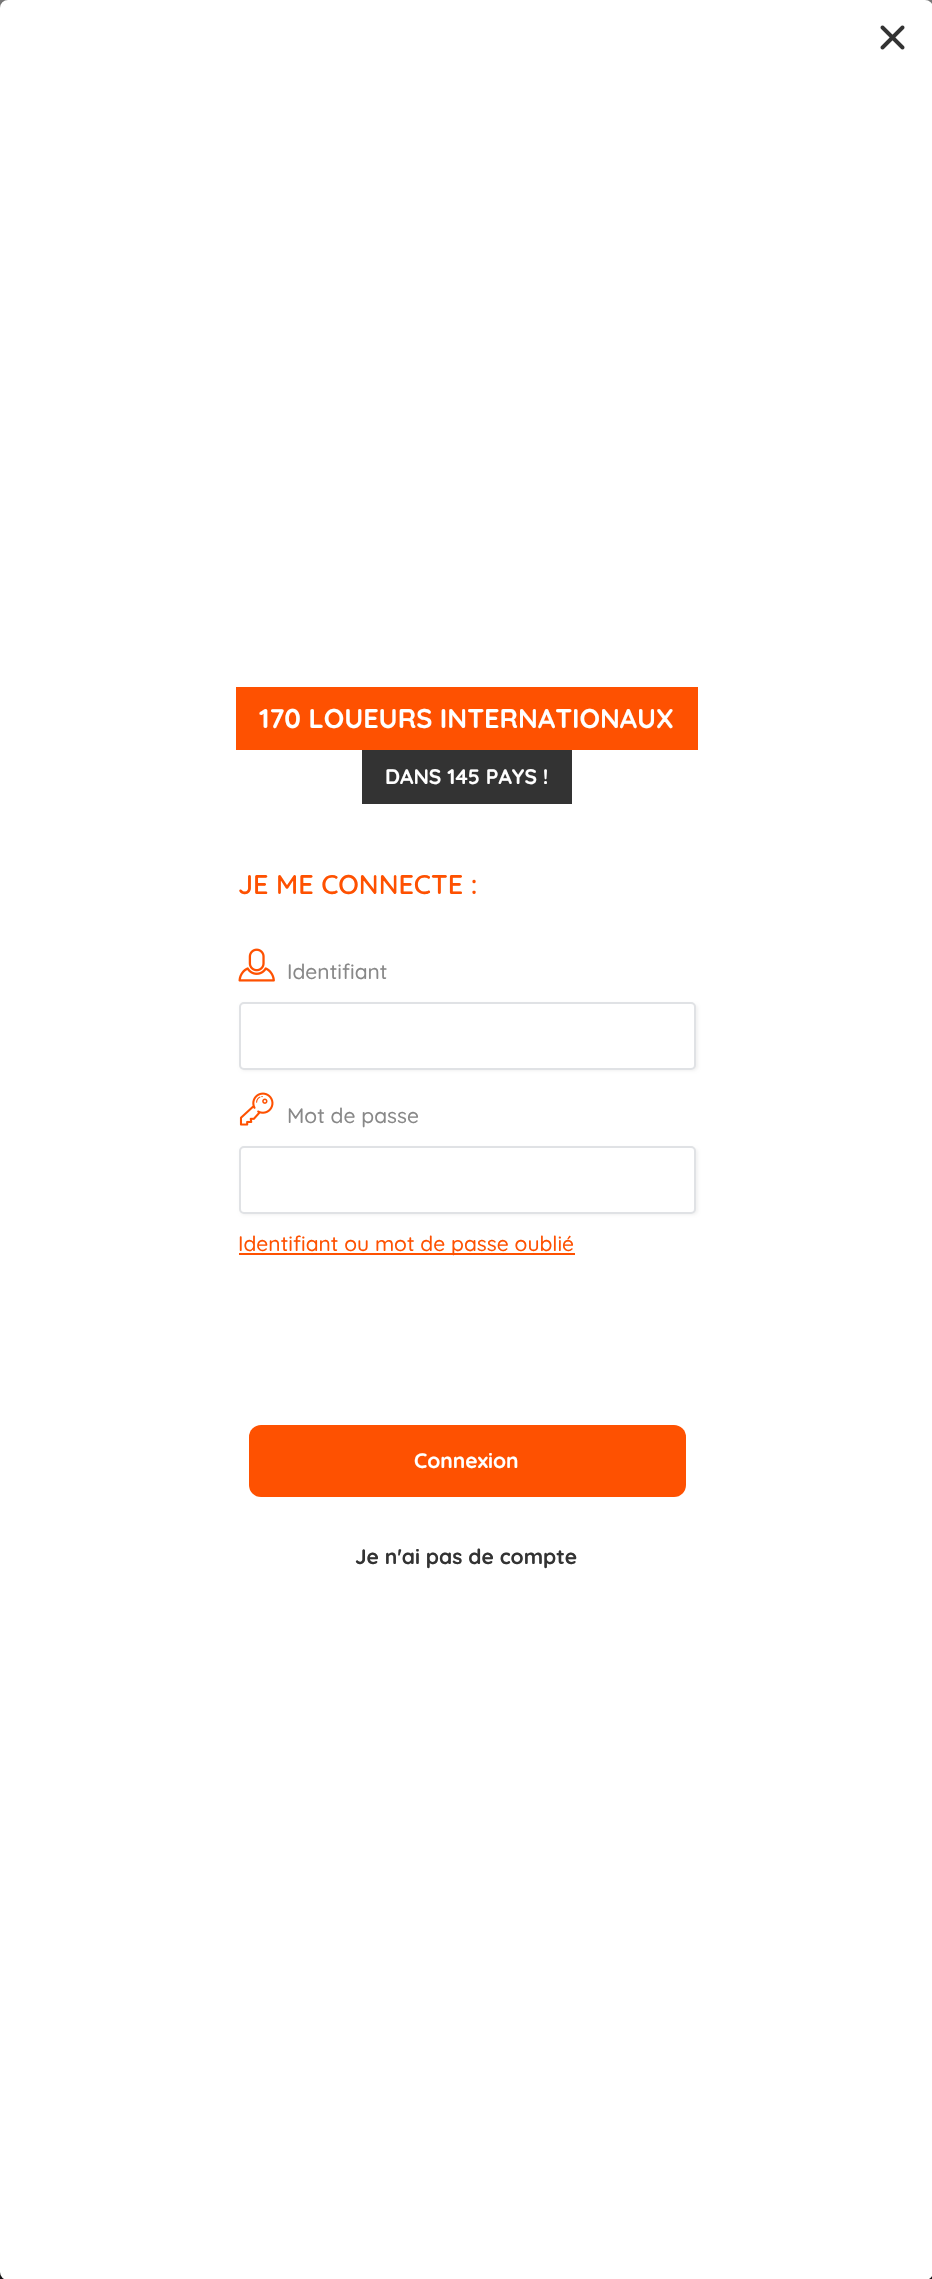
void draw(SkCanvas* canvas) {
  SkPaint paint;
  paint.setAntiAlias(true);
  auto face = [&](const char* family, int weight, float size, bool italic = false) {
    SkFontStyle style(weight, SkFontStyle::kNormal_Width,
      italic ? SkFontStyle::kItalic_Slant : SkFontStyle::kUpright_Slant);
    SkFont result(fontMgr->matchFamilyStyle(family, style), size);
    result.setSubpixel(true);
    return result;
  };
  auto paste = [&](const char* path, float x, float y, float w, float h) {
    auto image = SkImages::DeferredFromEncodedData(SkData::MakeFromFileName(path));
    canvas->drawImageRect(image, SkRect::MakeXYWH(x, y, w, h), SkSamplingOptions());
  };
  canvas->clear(0xff1a1a1a);
  paint.setColor(0xff808080);
  canvas->drawRect(SkRect::MakeXYWH(0, 0, 932, 8), paint);
  paint.setColor(0x80000000);
  paint.setMaskFilter(SkMaskFilter::MakeBlur(kNormal_SkBlurStyle, 7));
  canvas->drawRoundRect(SkRect::MakeXYWH(0, 5, 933, 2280), 8, 8, paint);
  paint.setMaskFilter(nullptr);
  paint.setColor(0xffffffff);
  canvas->drawRoundRect(SkRect::MakeXYWH(0, 0, 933, 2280), 8, 8, paint);
  paste("img/1.png", 880, 25, 25, 25);
  paint.setColor(0xfffe5101);
  canvas->drawRect(SkRect::MakeXYWH(236, 687, 462, 63), paint);
  paint.setColor(0xff333333);
  canvas->drawRect(SkRect::MakeXYWH(362, 750, 210, 54), paint);
  paste("img/2.png", 238, 948, 37, 34);
  paint.setColor(0x0d000000);
  paint.setMaskFilter(SkMaskFilter::MakeBlur(kNormal_SkBlurStyle, 1.5f));
  canvas->drawRoundRect(SkRect::MakeXYWH(240, 1004, 458, 67), 5, 5, paint);
  paint.setMaskFilter(nullptr);
  paint.setColor(0xffffffff);
  canvas->drawRoundRect(SkRect::MakeXYWH(240, 1003, 455, 66), 4, 4, paint);
  paint.setStroke(true);
  paint.setStrokeWidth(2);
  paint.setColor(0xffe0e2e5);
  canvas->drawRoundRect(SkRect::MakeXYWH(240, 1003, 455, 66), 4, 4, paint);
  paste("img/3.png", 239, 1092, 35, 34);
  paint.setStroke(false);
  paint.setColor(0x0d000000);
  paint.setMaskFilter(SkMaskFilter::MakeBlur(kNormal_SkBlurStyle, 1.5f));
  canvas->drawRoundRect(SkRect::MakeXYWH(240, 1148, 458, 67), 5, 5, paint);
  paint.setMaskFilter(nullptr);
  paint.setColor(0xffffffff);
  canvas->drawRoundRect(SkRect::MakeXYWH(240, 1147, 455, 66), 4, 4, paint);
  paint.setStroke(true);
  paint.setColor(0xffe0e2e5);
  canvas->drawRoundRect(SkRect::MakeXYWH(240, 1147, 455, 66), 4, 4, paint);
  paint.setStroke(false);
  paint.setColor(0xfffe5101);
  canvas->drawRect(SkRect::MakeXYWH(239, 1253, 336, 2), paint);
  canvas->drawRoundRect(SkRect::MakeXYWH(249, 1425, 437, 72), 12, 12, paint);
  auto f0 = face("Quicksand", 700, 27);
  paint.setColor(0xffffffff);
  canvas->drawString("170 LOUEURS INTERNATIONAUX", 259, 728, f0, paint);
  auto f1 = face("Quicksand", 700, 21);
  canvas->drawString("DANS 145 PAYS !", 385, 784, f1, paint);
  auto f2 = face("Quicksand", 600, 27);
  paint.setColor(0xfffe5101);
  canvas->drawString("JE ME CONNECTE :", 238, 894, f2, paint);
  auto f3 = face("Quicksand", 500, 21);
  paint.setColor(0xff888888);
  canvas->drawString("Identifiant", 287, 979, f3, paint);
  canvas->drawString("Mot de passe", 287, 1123, f3, paint);
  paint.setColor(0xfffe5101);
  canvas->drawString("Identifiant ou mot de passe oublié", 238, 1251, f3, paint);
  paint.setColor(0xffffffff);
  canvas->drawString("Connexion", 414, 1468, f1, paint);
  paint.setColor(0xff333333);
  canvas->drawString("Je n'ai pas de compte", 355, 1564, f1, paint);
}
